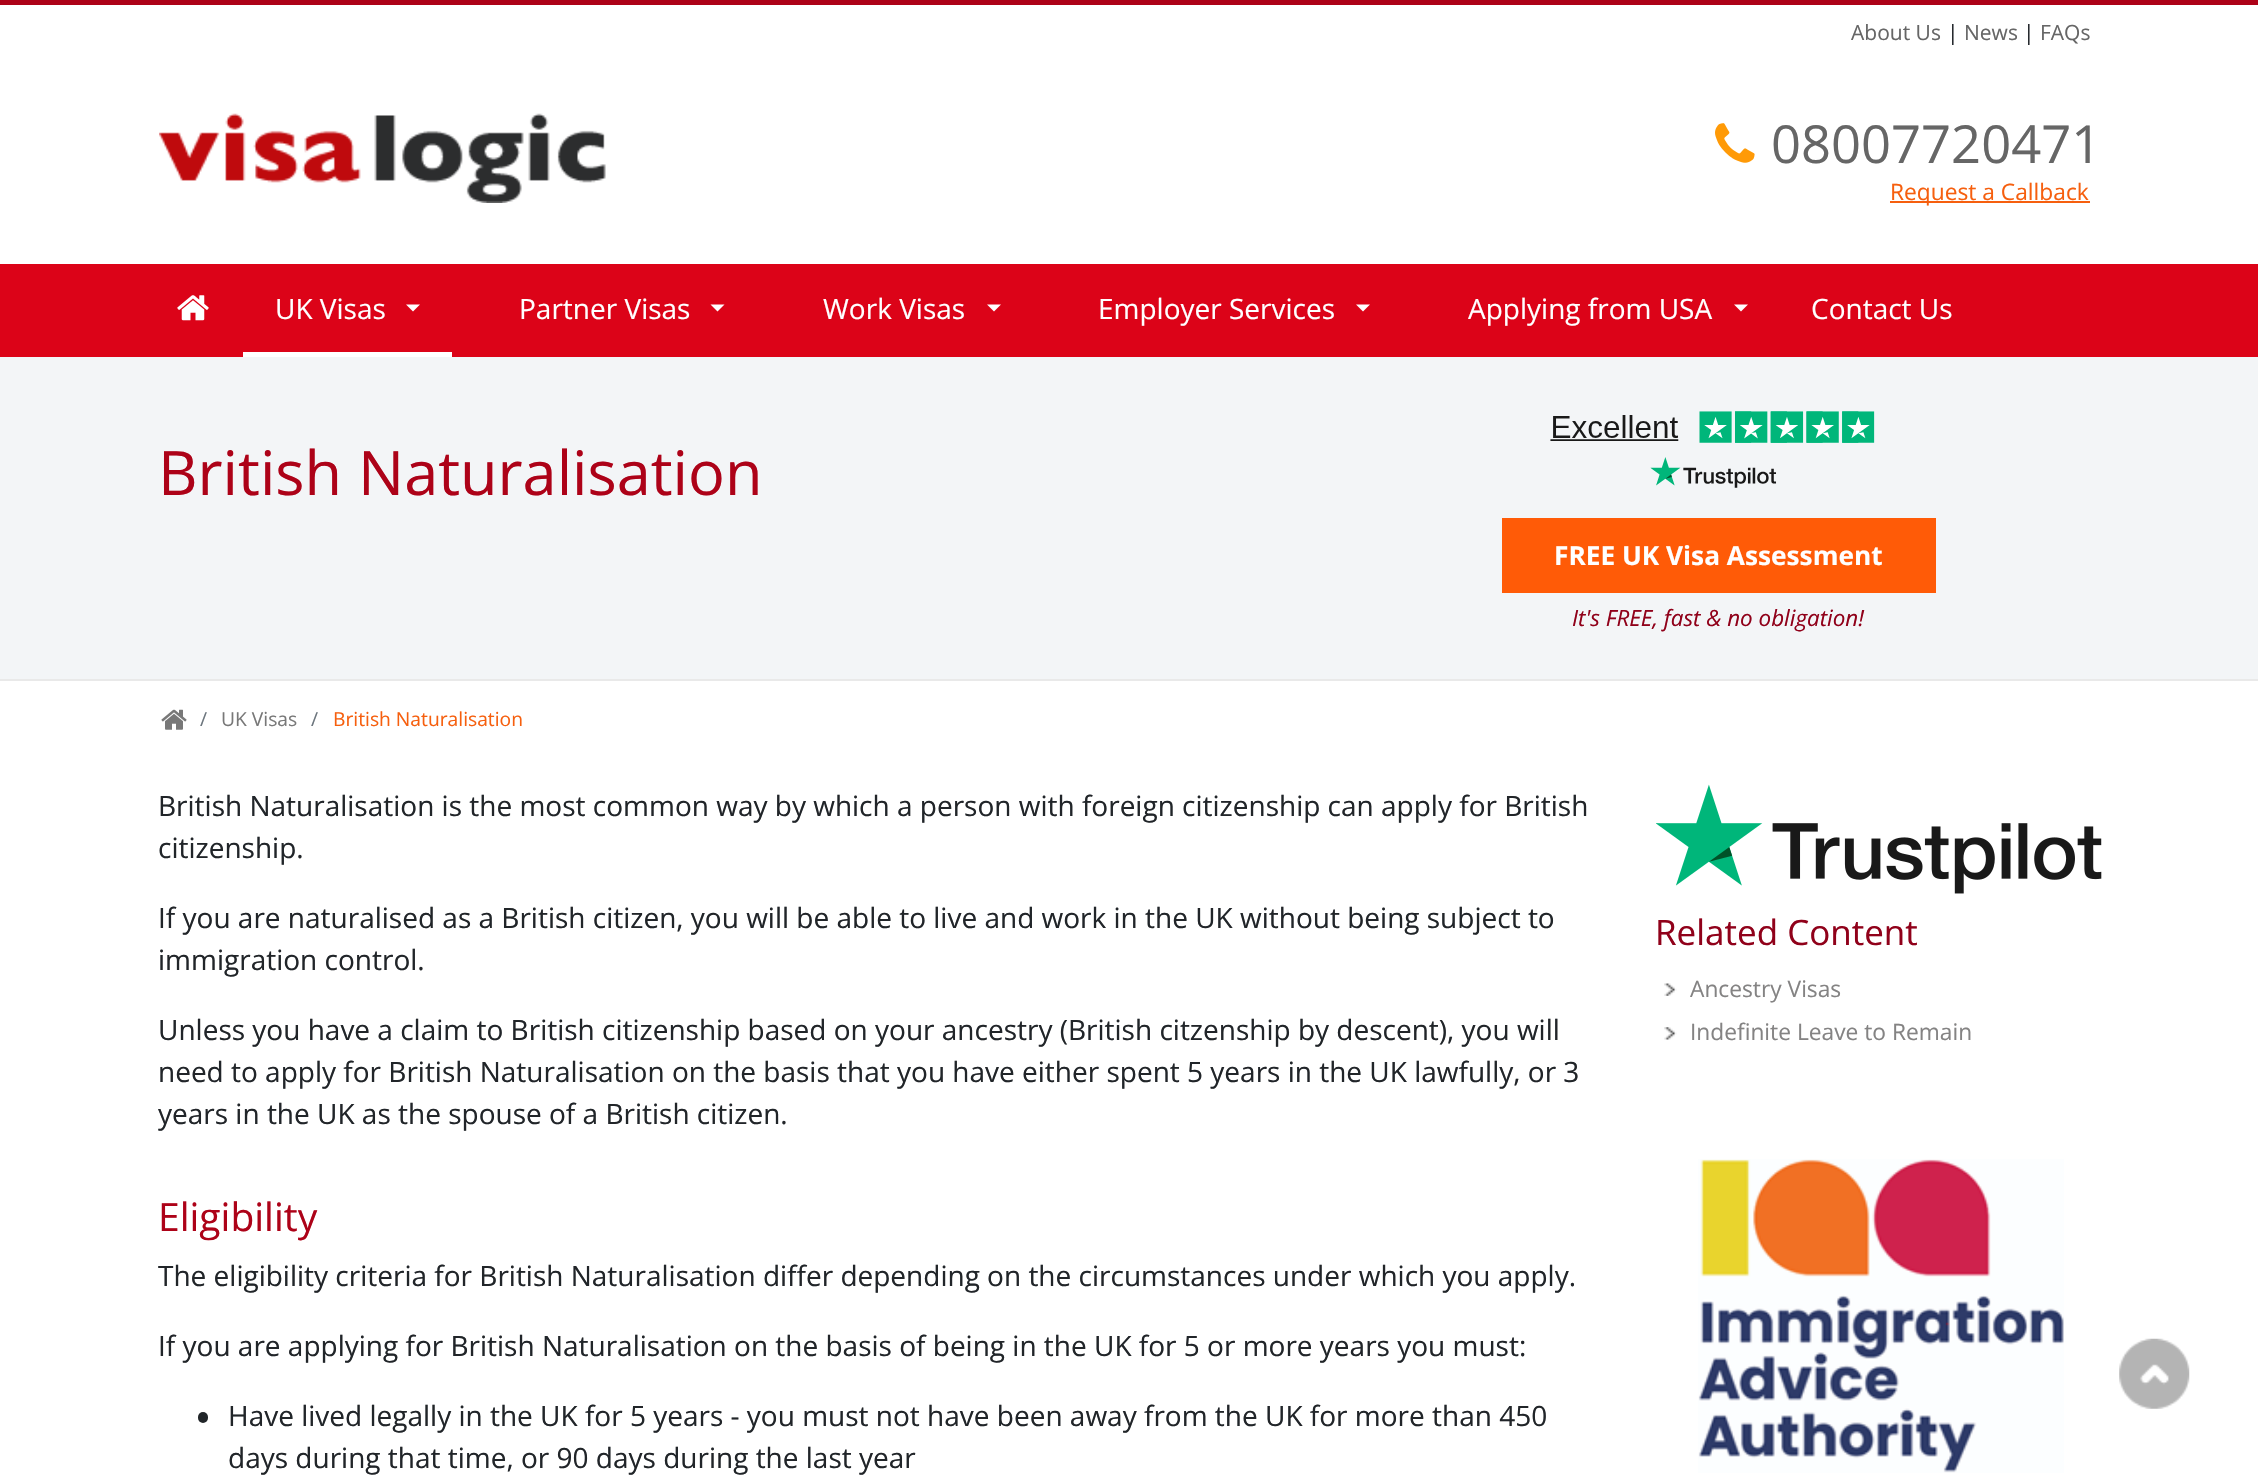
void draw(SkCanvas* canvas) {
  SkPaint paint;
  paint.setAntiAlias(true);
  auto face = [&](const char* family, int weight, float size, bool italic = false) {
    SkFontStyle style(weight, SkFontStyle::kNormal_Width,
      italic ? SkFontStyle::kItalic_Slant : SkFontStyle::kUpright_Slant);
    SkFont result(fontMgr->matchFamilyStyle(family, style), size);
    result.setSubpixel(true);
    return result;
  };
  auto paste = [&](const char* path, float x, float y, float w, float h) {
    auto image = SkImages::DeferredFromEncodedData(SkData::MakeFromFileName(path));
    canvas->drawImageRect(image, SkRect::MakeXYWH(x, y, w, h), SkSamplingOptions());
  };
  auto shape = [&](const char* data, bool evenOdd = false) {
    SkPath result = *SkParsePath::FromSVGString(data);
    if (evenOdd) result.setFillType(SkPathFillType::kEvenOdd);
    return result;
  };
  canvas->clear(0xffffffff);
  paint.setColor(0xffad0218);
  canvas->drawRect(SkRect::MakeXYWH(0, 0, 2258, 5), paint);
  paste("img/1.png", 159, 113, 447, 90);
  paste("img/2.png", 1715, 123, 40, 40);
  paint.setColor(0xfff65f0e);
  canvas->drawRect(SkRect::MakeXYWH(1890, 201, 200, 2), paint);
  paint.setColor(0xffdc0318);
  canvas->drawRect(SkRect::MakeXYWH(0, 264, 2258, 93), paint);
  paste("img/3.png", 177, 295, 32, 26);
  paint.setColor(0xffffffff);
  canvas->drawRect(SkRect::MakeXYWH(243, 352, 209, 5), paint);
  canvas->drawPath(shape("M406 304.5H420L413 311.5Z"), paint);
  canvas->drawPath(shape("M710.5 304.5H724.5L717.5 311.5Z"), paint);
  canvas->drawPath(shape("M987 304.5H1001L994 311.5Z"), paint);
  canvas->drawPath(shape("M1356 304.5H1370L1363 311.5Z"), paint);
  canvas->drawPath(shape("M1734 304.5H1748L1741 311.5Z"), paint);
  paint.setColor(0xfff3f5f7);
  canvas->drawRect(SkRect::MakeXYWH(0, 357, 2258, 322), paint);
  paint.setColor(0xffe9e9e9);
  canvas->drawRect(SkRect::MakeXYWH(0, 679, 2258, 2), paint);
  paste("img/4.png", 1550, 411, 325, 77);
  paint.setColor(0xffff5b07);
  canvas->drawRect(SkRect::MakeXYWH(1502, 518, 434, 75), paint);
  paste("img/5.png", 161, 709, 26, 21);
  paint.setColor(0xff212529);
  canvas->drawRoundRect(SkRect::MakeXYWH(198, 1412, 10, 11), 5, 5, paint);
  paste("img/6.png", 1656, 784, 446, 110);
  paste("img/7.png", 1664, 983, 13, 13);
  paste("img/8.png", 1664, 1027, 13, 13);
  paste("img/9.png", 1698, 1159, 366, 314);
  paste("img/10.png", 2119, 1338, 71, 71);
  auto f0 = face("Open Sans", 400, 21);
  paint.setColor(0xff666666);
  canvas->drawString("About Us", 1851, 40, f0, paint);
  paint.setColor(0xff212529);
  canvas->drawString("|", 1947, 40, f0, paint);
  paint.setColor(0xff666666);
  canvas->drawString("News", 1964, 40, f0, paint);
  paint.setColor(0xff212529);
  canvas->drawString("|", 2023, 40, f0, paint);
  paint.setColor(0xff666666);
  canvas->drawString("FAQs", 2040, 40, f0, paint);
  auto f1 = face("Open Sans", 400, 52.5f);
  canvas->drawString("08007720471", 1771, 163, f1, paint);
  auto f2 = face("Open Sans", 400, 22.75f);
  paint.setColor(0xfff65f0e);
  canvas->drawString("Request a Callback", 1890, 200, f2, paint);
  auto f3 = face("Open Sans", 400, 28);
  paint.setColor(0xffffffff);
  {
    const struct { const char* s; float x, y; } items[] = {
      {"UK Visas", 275, 319},
      {"Partner Visas", 519, 319},
      {"Work Visas", 823, 319},
      {"Employer Services", 1098, 319},
      {"Applying from USA", 1468, 319},
      {"Contact Us", 1811, 319},
    };
    for (auto [s, x, y] : items) {
      canvas->drawString(s, x, y, f3, paint);
    }
  }
  auto f4 = face("Open Sans", 400, 61.25f);
  paint.setColor(0xffad0218);
  canvas->drawString("British Naturalisation", 158, 495, f4, paint);
  auto f5 = face("Open Sans", 700, 26.25f);
  paint.setColor(0xffffffff);
  canvas->drawString("FREE UK Visa Assessment", 1554, 565, f5, paint);
  auto f6 = face("Open Sans", 400, 22.4f, true);
  paint.setColor(0xff90011a);
  canvas->drawString("It's FREE, fast & no obligation!", 1572, 626, f6, paint);
  auto f7 = face("Open Sans", 400, 19.25f);
  paint.setColor(0xff6c757d);
  canvas->drawString("/", 200, 726, f7, paint);
  paint.setColor(0xff787878);
  canvas->drawString("UK Visas", 221, 726, f7, paint);
  paint.setColor(0xff6c757d);
  canvas->drawString("/", 311, 726, f7, paint);
  paint.setColor(0xfff65f0e);
  canvas->drawString("British Naturalisation", 333, 726, f7, paint);
  paint.setColor(0xff212529);
  {
    const struct { const char* s; float x, y; } items[] = {
      {"British Naturalisation is the most common way by which a person with foreign citizenship can apply for British", 158, 816},
      {"citizenship.", 158, 858},
      {"If you are naturalised as a British citizen, you will be able to live and work in the UK without being subject to", 158, 928},
      {"immigration control.", 158, 970},
      {"Unless you have a claim to British citizenship based on your ancestry (British citzenship by descent), you will", 158, 1040},
      {"need to apply for British Naturalisation on the basis that you have either spent 5 years in the UK lawfully, or 3", 158, 1082},
      {"years in the UK as the spouse of a British citizen.", 158, 1124},
    };
    for (auto [s, x, y] : items) {
      canvas->drawString(s, x, y, f3, paint);
    }
  }
  auto f8 = face("Open Sans", 400, 39);
  paint.setColor(0xffad0218);
  canvas->drawString("Eligibility", 158, 1231, f8, paint);
  paint.setColor(0xff212529);
  {
    const struct { const char* s; float x, y; } items[] = {
      {"The eligibility criteria for British Naturalisation differ depending on the circumstances under which you apply.", 158, 1286},
      {"If you are applying for British Naturalisation on the basis of being in the UK for 5 or more years you must:", 158, 1356},
      {"Have lived legally in the UK for 5 years - you must not have been away from the UK for more than 450", 228, 1426},
      {"days during that time, or 90 days during the last year", 228, 1468},
    };
    for (auto [s, x, y] : items) {
      canvas->drawString(s, x, y, f3, paint);
    }
  }
  auto f9 = face("Open Sans", 400, 35);
  paint.setColor(0xff90011a);
  canvas->drawString("Related Content", 1655, 945, f9, paint);
  paint.setColor(0xff848383);
  canvas->drawString("Ancestry Visas", 1690, 997, f2, paint);
  canvas->drawString("Indefinite Leave to Remain", 1690, 1040, f2, paint);
}
